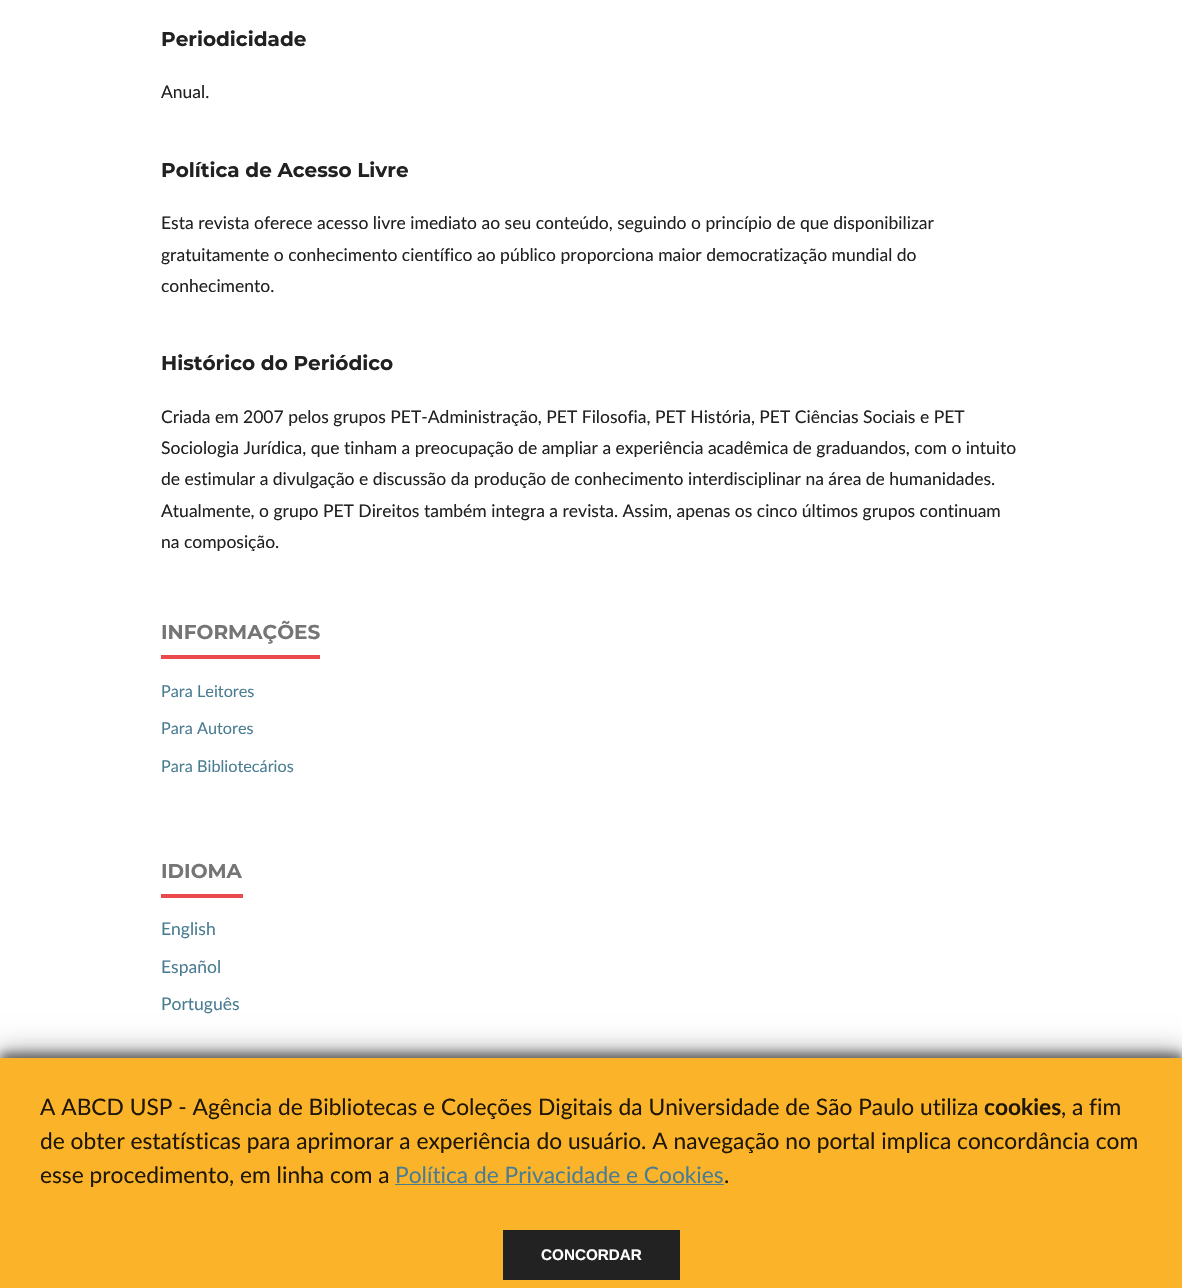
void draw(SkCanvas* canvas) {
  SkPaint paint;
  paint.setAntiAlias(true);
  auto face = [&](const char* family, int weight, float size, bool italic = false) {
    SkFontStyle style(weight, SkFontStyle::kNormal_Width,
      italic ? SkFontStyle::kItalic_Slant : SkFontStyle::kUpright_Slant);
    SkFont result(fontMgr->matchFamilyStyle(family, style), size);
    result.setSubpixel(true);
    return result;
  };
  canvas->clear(0xffffffff);
  paint.setColor(0xffeb494c);
  canvas->drawRect(SkRect::MakeXYWH(161, 655, 159, 4), paint);
  canvas->drawRect(SkRect::MakeXYWH(161, 894, 82, 4), paint);
  paint.setColor(0x4d000000);
  paint.setMaskFilter(SkMaskFilter::MakeBlur(kNormal_SkBlurStyle, 12.5f));
  canvas->drawRect(SkRect::MakeXYWH(0, 1050, 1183, 231), paint);
  paint.setMaskFilter(nullptr);
  paint.setColor(0x80000000);
  paint.setMaskFilter(SkMaskFilter::MakeBlur(kNormal_SkBlurStyle, 5));
  canvas->drawRect(SkRect::MakeXYWH(0, 1053, 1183, 231), paint);
  paint.setMaskFilter(nullptr);
  {
    const struct { float x, y, w, h; SkColor color; } items[] = {
      {0, 1058, 1182, 230, 0xfffbb42a},
      {395, 1184, 329, 1, 0xff4b7d92},
      {503, 1230, 177, 50, 0xff222222},
    };
    for (auto [x, y, w, h, color] : items) {
      paint.setColor(color);
      canvas->drawRect(SkRect::MakeXYWH(x, y, w, h), paint);
    }
  }
  auto f0 = face("Montserrat", 700, 20);
  paint.setColor(0xff212121);
  canvas->drawString("Periodicidade", 161, 46, f0, paint);
  auto f1 = face("Lato", 400, 17.5f);
  canvas->drawString("Anual.", 161, 98, f1, paint);
  canvas->drawString("Política de Acesso Livre", 161, 177, f0, paint);
  {
    const struct { const char* s; float x, y; } items[] = {
      {"Esta revista oferece acesso livre imediato ao seu conteúdo, seguindo o princípio de que disponibilizar", 161, 229},
      {"gratuitamente o conhecimento científico ao público proporciona maior democratização mundial do", 161, 261},
      {"conhecimento.", 161, 292},
    };
    for (auto [s, x, y] : items) {
      canvas->drawString(s, x, y, f1, paint);
    }
  }
  canvas->drawString("Histórico do Periódico", 161, 370, f0, paint);
  {
    const struct { const char* s; float x, y; } items[] = {
      {"Criada em 2007 pelos grupos PET-Administração, PET Filosofia, PET História, PET Ciências Sociais e PET", 161, 423},
      {"Sociologia Jurídica, que tinham a preocupação de ampliar a experiência acadêmica de graduandos, com o intuito", 161, 454},
      {"de estimular a divulgação e discussão da produção de conhecimento interdisciplinar na área de humanidades.", 161, 485},
      {"Atualmente, o grupo PET Direitos também integra a revista. Assim, apenas os cinco últimos grupos continuam", 161, 517},
      {"na composição.", 161, 548},
    };
    for (auto [s, x, y] : items) {
      canvas->drawString(s, x, y, f1, paint);
    }
  }
  paint.setColor(0xff757575);
  canvas->drawString("INFORMAÇÕES", 161, 639, f0, paint);
  auto f2 = face("Lato", 400, 16.25f);
  paint.setColor(0xff4b7d92);
  {
    const struct { const char* s; float x, y; } items[] = {
      {"Para Leitores", 161, 697},
      {"Para Autores", 161, 734},
      {"Para Bibliotecários", 161, 772},
    };
    for (auto [s, x, y] : items) {
      canvas->drawString(s, x, y, f2, paint);
    }
  }
  paint.setColor(0xff757575);
  canvas->drawString("IDIOMA", 161, 878, f0, paint);
  paint.setColor(0xff4b7d92);
  {
    const struct { const char* s; float x, y; } items[] = {
      {"English", 161, 935},
      {"Español", 161, 973},
      {"Português", 161, 1010},
    };
    for (auto [s, x, y] : items) {
      canvas->drawString(s, x, y, f1, paint);
    }
  }
  auto f3 = face("Lato", 400, 22.75f);
  paint.setColor(0xff211705);
  canvas->drawString("A ABCD USP - Agência de Bibliotecas e Coleções Digitais da Universidade de São Paulo utiliza", 40, 1115, f3, paint);
  auto f4 = face("Lato", 700, 22.75f);
  canvas->drawString("cookies", 984, 1115, f4, paint);
  {
    const struct { const char* s; float x, y; } items[] = {
      {", a fim", 1061, 1115},
      {"de obter estatísticas para aprimorar a experiência do usuário. A navegação no portal implica concordância com", 40, 1149},
      {"esse procedimento, em linha com a", 40, 1183},
    };
    for (auto [s, x, y] : items) {
      canvas->drawString(s, x, y, f3, paint);
    }
  }
  paint.setColor(0xff4b7d92);
  canvas->drawString("Política de Privacidade e Cookies", 395, 1183, f3, paint);
  paint.setColor(0xff211705);
  canvas->drawString(".", 724, 1183, f3, paint);
  auto f5 = face("Liberation Sans", 700, 15.25f);
  paint.setColor(0xffffffff);
  canvas->drawString("CONCORDAR", 541, 1260, f5, paint);
}
